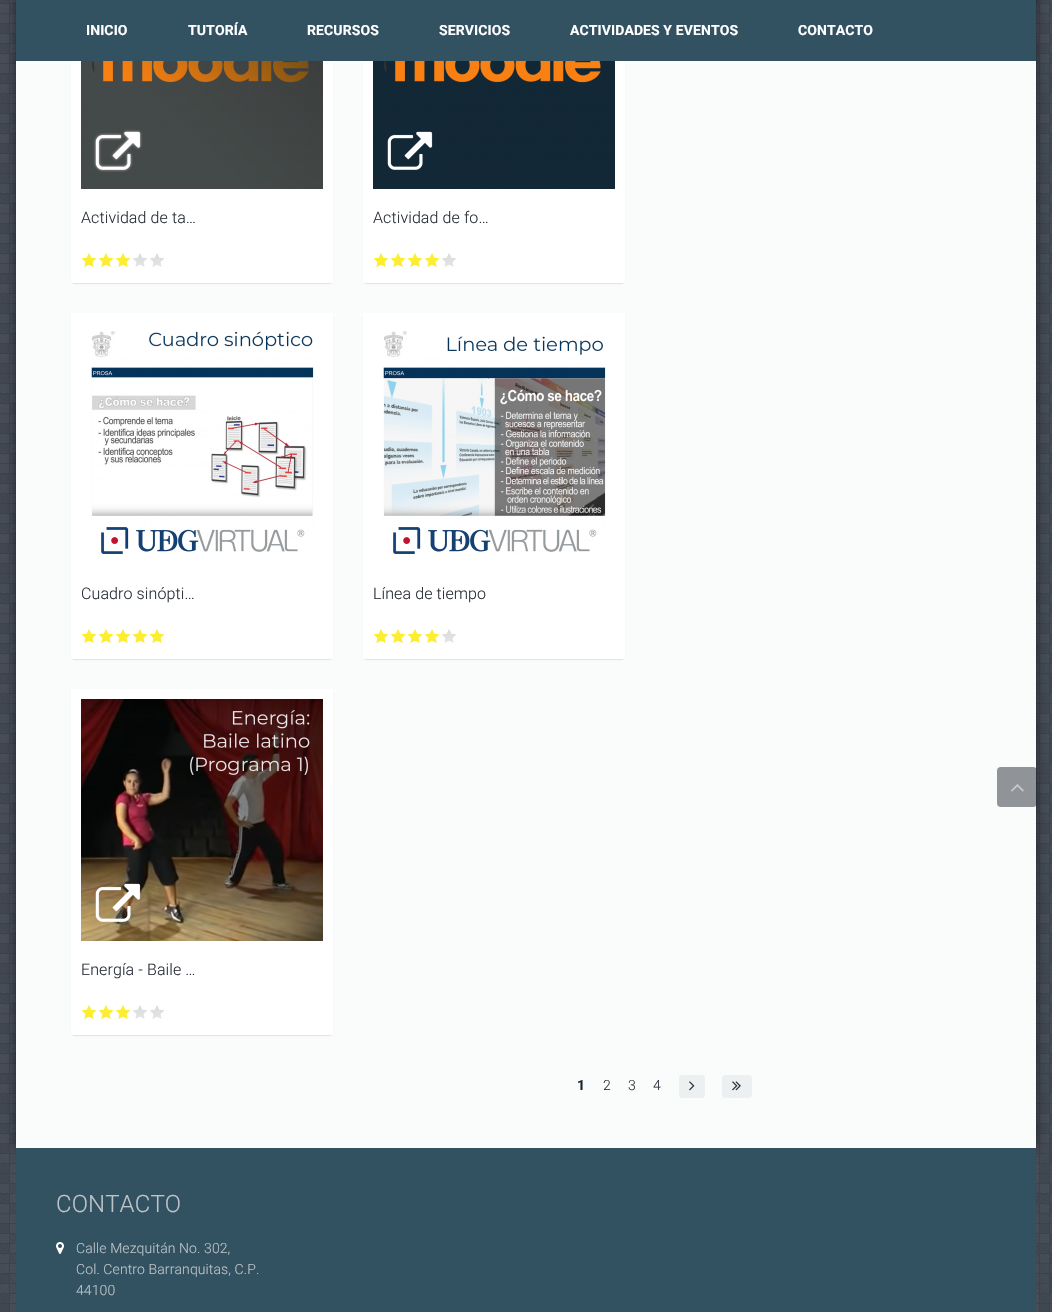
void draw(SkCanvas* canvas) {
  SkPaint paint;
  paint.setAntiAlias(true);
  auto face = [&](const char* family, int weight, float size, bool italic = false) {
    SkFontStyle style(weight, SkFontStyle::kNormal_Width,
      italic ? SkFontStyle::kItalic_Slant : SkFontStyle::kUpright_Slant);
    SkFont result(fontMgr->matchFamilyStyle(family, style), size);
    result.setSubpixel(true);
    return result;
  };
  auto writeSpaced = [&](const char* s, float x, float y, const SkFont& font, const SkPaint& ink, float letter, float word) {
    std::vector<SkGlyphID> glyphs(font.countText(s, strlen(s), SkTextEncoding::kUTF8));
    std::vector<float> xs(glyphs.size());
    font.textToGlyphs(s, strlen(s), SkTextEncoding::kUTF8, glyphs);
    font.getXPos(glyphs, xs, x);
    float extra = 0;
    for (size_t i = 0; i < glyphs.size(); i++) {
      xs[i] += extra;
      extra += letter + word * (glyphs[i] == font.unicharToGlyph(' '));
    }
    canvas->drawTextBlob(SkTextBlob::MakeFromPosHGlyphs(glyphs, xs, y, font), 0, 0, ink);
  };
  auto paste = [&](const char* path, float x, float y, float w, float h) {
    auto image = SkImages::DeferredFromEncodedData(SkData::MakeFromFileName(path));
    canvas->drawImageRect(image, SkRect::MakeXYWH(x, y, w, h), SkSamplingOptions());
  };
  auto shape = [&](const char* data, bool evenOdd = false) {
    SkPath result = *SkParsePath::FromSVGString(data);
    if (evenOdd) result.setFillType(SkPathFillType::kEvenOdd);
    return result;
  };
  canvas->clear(0xffffffff);
  paste("img/1.png", 0, 0, 1052, 1312);
  paint.setColor(0x80000000);
  paint.setMaskFilter(SkMaskFilter::MakeBlur(kNormal_SkBlurStyle, 5));
  canvas->drawRect(SkRect::MakeXYWH(16, -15, 1020, 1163), paint);
  paint.setMaskFilter(nullptr);
  paint.setColor(0xfffafbfb);
  canvas->drawRect(SkRect::MakeXYWH(16, 61, 1020, 1087), paint);
  paint.setColor(0x1a000000);
  paint.setMaskFilter(SkMaskFilter::MakeBlur(kNormal_SkBlurStyle, 0.5f));
  canvas->drawRoundRect(SkRect::MakeXYWH(71, -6, 262, 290), 4, 4, paint);
  paint.setMaskFilter(nullptr);
  paint.setColor(0xffffffff);
  canvas->drawRect(SkRect::MakeXYWH(81, 189, 242, 84), paint);
  paint.setStroke(true);
  paint.setStrokeWidth(10);
  canvas->drawPath(shape("M76-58H328V278H76Z"), paint);
  paint.setStroke(false);
  paint.setColor(0x1a000000);
  paint.setMaskFilter(SkMaskFilter::MakeBlur(kNormal_SkBlurStyle, 0.5f));
  canvas->drawRoundRect(SkRect::MakeXYWH(363, -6, 262, 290), 4, 4, paint);
  paint.setMaskFilter(nullptr);
  paint.setColor(0xffffffff);
  canvas->drawRect(SkRect::MakeXYWH(373, 189, 242, 84), paint);
  paint.setStroke(true);
  canvas->drawPath(shape("M368-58H620V278H368Z"), paint);
  paint.setStroke(false);
  paint.setColor(0xff325262);
  canvas->drawRect(SkRect::MakeXYWH(16, 0, 1020, 61), paint);
  paste("img/2.png", 81, 61, 242, 128);
  paste("img/3.png", 81, 253, 16, 14);
  paste("img/3.png", 98, 253, 16, 14);
  paste("img/3.png", 115, 253, 16, 14);
  paste("img/4.png", 133, 253, 15, 14);
  paste("img/4.png", 150, 253, 15, 14);
  paste("img/5.png", 373, 61, 242, 128);
  paste("img/3.png", 373, 253, 16, 14);
  paste("img/3.png", 390, 253, 16, 14);
  paste("img/3.png", 407, 253, 16, 14);
  paste("img/3.png", 424, 253, 16, 14);
  paste("img/4.png", 442, 253, 15, 14);
  paint.setColor(0x1a000000);
  paint.setMaskFilter(SkMaskFilter::MakeBlur(kNormal_SkBlurStyle, 0.5f));
  canvas->drawRoundRect(SkRect::MakeXYWH(71, 314, 262, 346), 4, 4, paint);
  paint.setMaskFilter(nullptr);
  paint.setColor(0xffffffff);
  canvas->drawRect(SkRect::MakeXYWH(81, 323, 242, 326), paint);
  paint.setStroke(true);
  canvas->drawPath(shape("M76 318H328V654H76Z"), paint);
  paste("img/6.png", 91, 331, 223, 223);
  paste("img/3.png", 81, 629, 16, 14);
  paste("img/3.png", 98, 629, 16, 14);
  paste("img/3.png", 115, 629, 16, 14);
  paste("img/3.png", 132, 629, 16, 14);
  paste("img/3.png", 149, 629, 16, 14);
  paint.setStroke(false);
  paint.setColor(0x1a000000);
  paint.setMaskFilter(SkMaskFilter::MakeBlur(kNormal_SkBlurStyle, 0.5f));
  canvas->drawRoundRect(SkRect::MakeXYWH(363, 314, 262, 346), 4, 4, paint);
  paint.setMaskFilter(nullptr);
  paint.setColor(0xffffffff);
  canvas->drawRect(SkRect::MakeXYWH(373, 323, 242, 326), paint);
  paint.setStroke(true);
  canvas->drawPath(shape("M368 318H620V654H368Z"), paint);
  paste("img/7.png", 383, 331, 223, 223);
  paste("img/3.png", 373, 629, 16, 14);
  paste("img/3.png", 390, 629, 16, 14);
  paste("img/3.png", 407, 629, 16, 14);
  paste("img/3.png", 424, 629, 16, 14);
  paste("img/4.png", 442, 629, 15, 14);
  paint.setStroke(false);
  paint.setColor(0x1a000000);
  paint.setMaskFilter(SkMaskFilter::MakeBlur(kNormal_SkBlurStyle, 0.5f));
  canvas->drawRoundRect(SkRect::MakeXYWH(71, 690, 262, 346), 4, 4, paint);
  paint.setMaskFilter(nullptr);
  paint.setColor(0xffffffff);
  canvas->drawRect(SkRect::MakeXYWH(81, 941, 242, 84), paint);
  paint.setStroke(true);
  canvas->drawPath(shape("M76 694H328V1030H76Z"), paint);
  paste("img/8.png", 81, 699, 242, 242);
  paste("img/3.png", 81, 1005, 16, 14);
  paste("img/3.png", 98, 1005, 16, 14);
  paste("img/3.png", 115, 1005, 16, 14);
  paste("img/4.png", 133, 1005, 15, 14);
  paste("img/4.png", 150, 1005, 15, 14);
  paint.setStroke(false);
  paint.setColor(0xffecf0f1);
  canvas->drawRoundRect(SkRect::MakeXYWH(679, 1075, 26, 23), 4, 4, paint);
  paste("img/9.png", 689, 1081, 6, 10);
  canvas->drawRoundRect(SkRect::MakeXYWH(722, 1075, 30, 23), 4, 4, paint);
  paste("img/10.png", 732, 1081, 9, 10);
  paint.setColor(0xff325262);
  canvas->drawRect(SkRect::MakeXYWH(16, 1148, 1020, 164), paint);
  paste("img/11.png", 56, 1242, 8, 12);
  paint.setColor(0x80262c34);
  canvas->drawRoundRect(SkRect::MakeXYWH(997, 767, 40, 40), 4, 4, paint);
  paste("img/12.png", 1011, 784, 13, 8);
  auto f0 = face("Roboto", 700, 14);
  paint.setColor(0xffffffff);
  {
    const struct { const char* s; float x, y; } items[] = {
      {"INICIO", 86, 35},
      {"TUTORÍA", 188, 35},
      {"RECURSOS", 307, 35},
      {"SERVICIOS", 439, 35},
      {"ACTIVIDADES Y EVENTOS", 570, 35},
      {"CONTACTO", 798, 35},
    };
    for (auto [s, x, y] : items) {
      writeSpaced(s, x, y, f0, paint, 0.1f, 0);
    }
  }
  auto f1 = face("Roboto", 300, 16);
  paint.setColor(0xff292f38);
  {
    const struct { const char* s; float x, y; } items[] = {
      {"Actividad de ta…", 81, 223},
      {"Actividad de fo…", 373, 223},
      {"Cuadro sinópti…", 81, 599},
      {"Línea de tiempo", 373, 599},
      {"Energía - Baile …", 81, 975},
    };
    for (auto [s, x, y] : items) {
      writeSpaced(s, x, y, f1, paint, 0.1f, 0);
    }
  }
  paint.setColor(0xff16262d);
  writeSpaced("1", 577, 1090, f0, paint, 0.1f, 0);
  auto f2 = face("Roboto", 300, 14);
  paint.setColor(0xff292f38);
  {
    const struct { const char* s; float x, y; } items[] = {
      {"2", 603, 1090},
      {"3", 628, 1090},
      {"4", 653, 1090},
    };
    for (auto [s, x, y] : items) {
      writeSpaced(s, x, y, f2, paint, 0.1f, 0);
    }
  }
  auto f3 = face("Roboto", 300, 24);
  paint.setColor(0xffbdc3c7);
  writeSpaced("CONTACTO", 56, 1212, f3, paint, 0.1f, 0);
  {
    const struct { const char* s; float x, y; } items[] = {
      {"Calle Mezquitán No. 302,", 76, 1253},
      {"Col. Centro Barranquitas, C.P.", 76, 1274},
      {"44100", 76, 1295},
    };
    for (auto [s, x, y] : items) {
      writeSpaced(s, x, y, f2, paint, 0.1f, 0);
    }
  }
}
